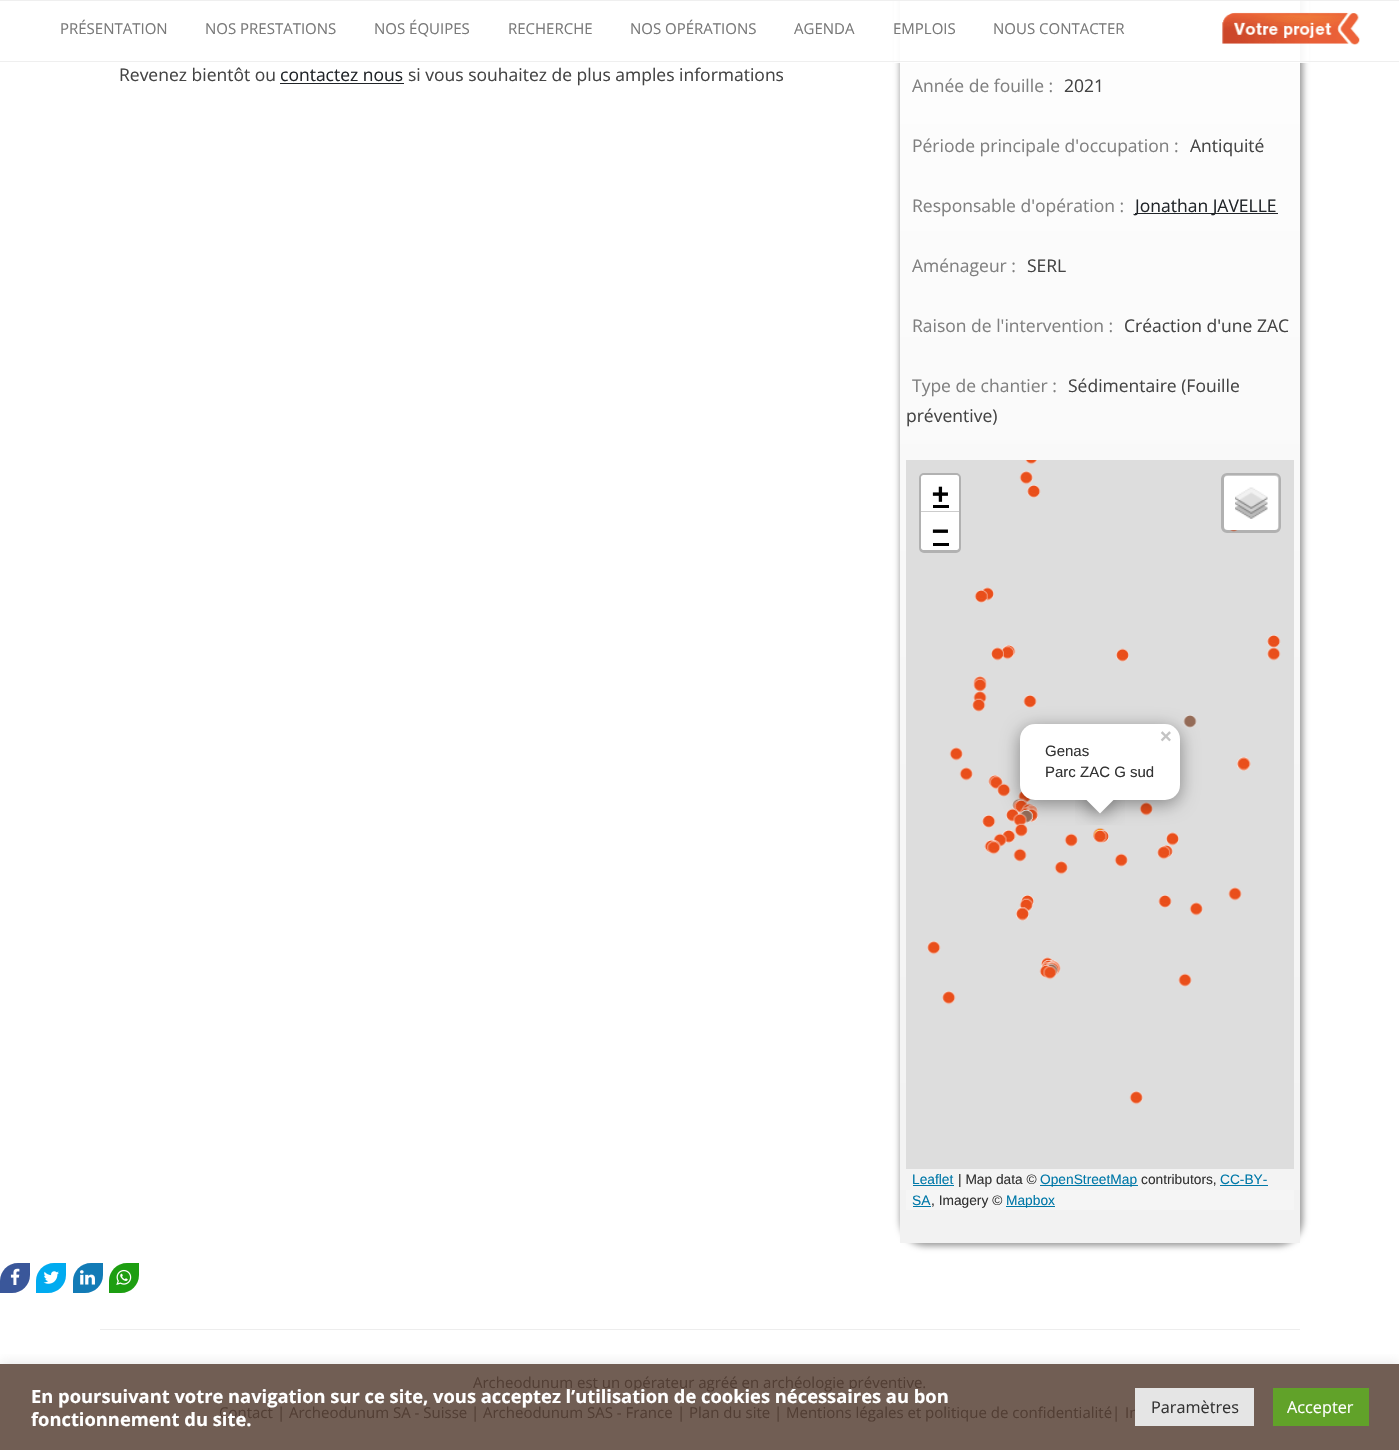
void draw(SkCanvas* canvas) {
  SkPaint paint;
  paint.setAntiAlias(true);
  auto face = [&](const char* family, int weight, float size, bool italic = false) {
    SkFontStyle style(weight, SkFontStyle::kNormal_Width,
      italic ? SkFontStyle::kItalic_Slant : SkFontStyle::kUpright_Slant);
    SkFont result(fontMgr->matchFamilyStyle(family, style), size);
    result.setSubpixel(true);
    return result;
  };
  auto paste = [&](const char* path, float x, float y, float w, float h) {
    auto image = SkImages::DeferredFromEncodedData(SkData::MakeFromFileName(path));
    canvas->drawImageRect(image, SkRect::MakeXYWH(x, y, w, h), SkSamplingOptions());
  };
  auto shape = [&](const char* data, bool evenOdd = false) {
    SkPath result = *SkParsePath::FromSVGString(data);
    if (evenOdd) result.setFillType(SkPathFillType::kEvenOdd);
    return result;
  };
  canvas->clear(0xffffffff);
  paint.setColor(0xff715e54);
  canvas->drawRect(SkRect::MakeXYWH(0, 1364, 1399, 86), paint);
  paint.setColor(0x66000000);
  paint.setMaskFilter(SkMaskFilter::MakeBlur(kNormal_SkBlurStyle, 3));
  canvas->drawRoundRect(SkRect::MakeXYWH(900, -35, 403, 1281), 26, 26, paint);
  paint.setMaskFilter(nullptr);
  {
    const SkColor colors[] = {0xffffffff, 0xfff2f2f2};
    const float stops[] = {0, 1};
    const SkPoint ends[] = {{1100, -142}, {1100, 1243}};
    paint.setShader(SkGradientShader::MakeLinear(ends, colors, stops, 2, SkTileMode::kClamp));
    paint.setAlpha(255);
  }
  canvas->drawRect(SkRect::MakeXYWH(900, 0, 400, 1243), paint);
  paint.setShader(nullptr);
  {
    const struct { float x, y, w, h; SkColor color; } items[] = {
      {894, 0, 415, 63, 0xe6ffffff},
      {0, 0, 1399, 1, 0xe6ededed},
      {0, 61, 1399, 1, 0xe6ededed},
    };
    for (auto [x, y, w, h, color] : items) {
      paint.setColor(color);
      canvas->drawRect(SkRect::MakeXYWH(x, y, w, h), paint);
    }
  }
  paste("img/1.png", 1222, 12, 138, 33);
  {
    const struct { float x, y, w, h; SkColor color; } items[] = {
      {280, 83, 124, 1, 0xff212529},
      {1135, 213, 143, 1, 0xff212529},
      {906, 460, 388, 709, 0xffdddddd},
    };
    for (auto [x, y, w, h, color] : items) {
      paint.setColor(color);
      canvas->drawRect(SkRect::MakeXYWH(x, y, w, h), paint);
    }
  }
  paint.setStroke(true);
  paint.setStrokeWidth(3);
  paint.setColor(0xffb1b1b1);
  canvas->drawRoundRect(SkRect::MakeXYWH(920.5f, 474.5f, 39, 77), 3.5f, 3.5f, paint);
  paint.setStroke(false);
  paint.setColor(0xffffffff);
  canvas->drawPath(shape("M923.5 475H956.5C958 475 959 476 959 477.5V513H921V477.5C921 476 922 475 923.5 475Z"), paint);
  paint.setColor(0xffcccccc);
  canvas->drawRect(SkRect::MakeXYWH(921, 511, 38, 1), paint);
  paint.setColor(0xff000000);
  canvas->drawRect(SkRect::MakeXYWH(933, 505, 16, 3), paint);
  paint.setColor(0xffffffff);
  canvas->drawPath(shape("M921 513H959V547.5C959 549 958 550 956.5 550H923.5C922 550 921 549 921 547.5Z"), paint);
  paint.setColor(0xff000000);
  canvas->drawRect(SkRect::MakeXYWH(933, 543, 16, 3), paint);
  paint.setColor(0xffffffff);
  canvas->drawRoundRect(SkRect::MakeXYWH(1224, 475, 55, 55), 4, 4, paint);
  paste("img/6.png", 1229, 530, 10, 2);
  paint.setStroke(true);
  paint.setColor(0x33000000);
  canvas->drawRoundRect(SkRect::MakeXYWH(1222.5f, 474.5f, 57, 57), 4.5f, 4.5f, paint);
  paste("img/2.png", 1235, 487, 33, 32);
  paint.setStroke(false);
  {
    const struct { float x, y, w, h; SkColor color; } items[] = {
      {906, 1190, 388, 20, 0xfff5f5f5},
      {913, 1185, 41, 1, 0xff0078a8},
      {1040, 1185, 98, 1, 0xff0078a8},
      {1220, 1185, 48, 1, 0xff0078a8},
      {913, 1206, 18, 1, 0xff0078a8},
      {1006, 1206, 49, 1, 0xff0078a8},
    };
    for (auto [x, y, w, h, color] : items) {
      paint.setColor(color);
      canvas->drawRect(SkRect::MakeXYWH(x, y, w, h), paint);
    }
  }
  paste("img/3.png", 1025, 460, 13, 5);
  paste("img/4.png", 1019, 471, 14, 14);
  paste("img/5.png", 1027, 485, 14, 13);
  paste("img/7.png", 981, 587, 13, 14);
  paste("img/8.png", 974, 590, 14, 13);
  paste("img/5.png", 1267, 635, 14, 13);
  paste("img/5.png", 1002, 645, 14, 13);
  paste("img/10.png", 1001, 646, 13, 14);
  paste("img/9.png", 991, 647, 13, 14);
  paste("img/11.png", 1116, 648, 13, 14);
  paste("img/12.png", 1267, 647, 14, 14);
  paste("img/13.png", 973, 676, 14, 14);
  paste("img/14.png", 973, 678, 14, 14);
  paste("img/15.png", 973, 691, 14, 13);
  paste("img/16.png", 1023, 695, 14, 13);
  paste("img/17.png", 972, 698, 14, 14);
  paste("img/18.png", 1183, 715, 14, 13);
  paste("img/19.png", 949, 747, 14, 14);
  paste("img/20.png", 1237, 757, 14, 14);
  paste("img/21.png", 1237, 757, 14, 14);
  paste("img/22.png", 1237, 757, 14, 14);
  paste("img/19.png", 959, 767, 14, 14);
  paste("img/16.png", 988, 775, 14, 13);
  paste("img/23.png", 989, 776, 14, 14);
  paste("img/24.png", 997, 783, 14, 14);
  paste("img/16.png", 1018, 790, 14, 13);
  paste("img/26.png", 1014, 798, 14, 14);
  paste("img/25.png", 1012, 798, 14, 14);
  paste("img/27.png", 1013, 800, 14, 13);
  paste("img/28.png", 1014, 800, 14, 13);
  paste("img/29.png", 1022, 803, 14, 7);
  paste("img/19.png", 1139, 802, 14, 14);
  paste("img/30.png", 1024, 805, 14, 11);
  paste("img/31.png", 1025, 806, 13, 14);
  paste("img/32.png", 1019, 807, 12, 14);
  paste("img/33.png", 1006, 808, 13, 14);
  paste("img/34.png", 1024, 807, 14, 14);
  paste("img/35.png", 1025, 808, 13, 14);
  paste("img/36.png", 1025, 808, 13, 14);
  paste("img/37.png", 1025, 808, 13, 14);
  paste("img/38.png", 1019, 810, 14, 13);
  paste("img/39.png", 1019, 810, 14, 13);
  paste("img/40.png", 1019, 810, 14, 13);
  paste("img/5.png", 982, 815, 14, 13);
  paste("img/41.png", 1013, 813, 14, 14);
  paste("img/42.png", 1014, 823, 14, 14);
  paste("img/43.png", 1093, 828, 14, 14);
  paste("img/44.png", 1002, 830, 14, 13);
  paste("img/45.png", 1093, 828, 14, 14);
  paste("img/46.png", 1002, 830, 14, 13);
  paste("img/51.png", 1098, 830, 11, 13);
  paste("img/47.png", 1093, 830, 14, 13);
  paste("img/49.png", 993, 833, 14, 14);
  paste("img/53.png", 988, 840, 13, 13);
  paste("img/48.png", 984, 840, 14, 13);
  paste("img/50.png", 1064, 833, 14, 14);
  paste("img/7.png", 1166, 832, 13, 14);
  paste("img/52.png", 984, 840, 14, 13);
  paste("img/54.png", 987, 841, 14, 14);
  paste("img/55.png", 1159, 845, 14, 13);
  paste("img/43.png", 1013, 848, 14, 14);
  paste("img/4.png", 1054, 861, 14, 14);
  paste("img/50.png", 1114, 853, 14, 14);
  paste("img/56.png", 1157, 846, 14, 14);
  paste("img/57.png", 1021, 895, 13, 13);
  paste("img/16.png", 1158, 895, 14, 13);
  paste("img/58.png", 1228, 887, 14, 14);
  paste("img/59.png", 1019, 898, 14, 14);
  paste("img/19.png", 1189, 902, 14, 14);
  paste("img/60.png", 1016, 907, 13, 14);
  paste("img/61.png", 1016, 907, 13, 14);
  paste("img/62.png", 927, 941, 14, 14);
  paste("img/63.png", 1041, 957, 13, 11);
  paste("img/66.png", 1049, 960, 10, 7);
  paste("img/64.png", 1042, 960, 13, 7);
  paste("img/65.png", 1042, 960, 13, 7);
  paste("img/67.png", 1047, 961, 12, 14);
  paste("img/69.png", 1048, 961, 13, 14);
  paste("img/75.png", 1049, 962, 12, 14);
  paste("img/73.png", 1046, 962, 12, 14);
  paste("img/70.png", 1042, 962, 12, 5);
  paste("img/68.png", 1041, 962, 11, 11);
  paste("img/71.png", 1044, 962, 14, 14);
  paste("img/72.png", 1044, 962, 14, 14);
  paste("img/74.png", 1046, 962, 13, 14);
  paste("img/76.png", 1045, 963, 13, 14);
  paste("img/77.png", 1039, 965, 13, 13);
  paste("img/78.png", 1043, 966, 14, 14);
  paste("img/43.png", 1178, 973, 14, 14);
  paste("img/62.png", 942, 991, 14, 14);
  paste("img/4.png", 1129, 1091, 14, 14);
  paint.setColor(0x66000000);
  paint.setMaskFilter(SkMaskFilter::MakeBlur(kNormal_SkBlurStyle, 9));
  canvas->drawRoundRect(SkRect::MakeXYWH(1020, 728, 160, 76), 15, 15, paint);
  paint.setMaskFilter(nullptr);
  paint.setColor(0xffffffff);
  canvas->drawRoundRect(SkRect::MakeXYWH(1020, 724, 160, 76), 15, 15, paint);
  canvas->save();
  canvas->clipRect(SkRect::MakeXYWH(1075, 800, 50, 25));
  paint.setColor(0x66000000);
  paint.setMaskFilter(SkMaskFilter::MakeBlur(kNormal_SkBlurStyle, 9));
  canvas->drawRect(SkRect::MakeXYWH(1089, 791, 21, 22), paint);
  paint.setMaskFilter(nullptr);
  canvas->restore();
  canvas->save();
  canvas->clipRect(SkRect::MakeXYWH(1075, 800, 50, 25));
  paint.setColor(0xffffffff);
  canvas->drawPath(shape("M1100 783.5L1115 798.5L1100 813.5L1085 798.5Z"), paint);
  canvas->restore();
  paint.setColor(0xff3a579a);
  canvas->drawPath(shape("M18 1263H30V1275C30 1285 22 1293 12 1293H0V1281C0 1271 8 1263 18 1263Z"), paint);
  paste("img/79.png", 10, 1268, 10, 17);
  paint.setColor(0xff00abf0);
  canvas->drawPath(shape("M54 1263H66V1275C66 1285 58 1293 48 1293H36V1281C36 1271 44 1263 54 1263Z"), paint);
  paste("img/80.png", 43, 1271, 16, 13);
  paint.setColor(0xff127bb6);
  canvas->drawPath(shape("M91 1263H103V1275C103 1285 95 1293 85 1293H73V1281C73 1271 81 1263 91 1263Z"), paint);
  paste("img/81.png", 80, 1270, 15, 15);
  paint.setColor(0xff1d9e11);
  canvas->drawPath(shape("M127 1263H139V1275C139 1285 131 1293 121 1293H109V1281C109 1271 117 1263 127 1263Z"), paint);
  paste("img/82.png", 116, 1269, 16, 16);
  paint.setColor(0xffededed);
  canvas->drawRect(SkRect::MakeXYWH(100, 1329, 1200, 1), paint);
  canvas->save();
  canvas->clipRect(SkRect::MakeXYWH(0, 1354, 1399, 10));
  paint.setColor(0x4dacabab);
  paint.setMaskFilter(SkMaskFilter::MakeBlur(kNormal_SkBlurStyle, 6));
  canvas->drawRect(SkRect::MakeXYWH(0, 1363, 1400, 86), paint);
  paint.setMaskFilter(nullptr);
  canvas->restore();
  paint.setColor(0xff61a229);
  canvas->drawRect(SkRect::MakeXYWH(1273, 1388, 96, 38), paint);
  auto f0 = face("Open Sans", 400, 15);
  paint.setColor(0xff797979);
  {
    const struct { const char* s; float x, y; } items[] = {
      {"PRÉSENTATION", 60, 34},
      {"NOS PRESTATIONS", 205, 34},
      {"NOS ÉQUIPES", 374, 34},
      {"RECHERCHE", 508, 34},
      {"NOS OPÉRATIONS", 630, 34},
      {"AGENDA", 794, 34},
      {"EMPLOIS", 893, 34},
      {"NOUS CONTACTER", 993, 34},
    };
    for (auto [s, x, y] : items) {
      canvas->drawString(s, x, y, f0, paint);
    }
  }
  auto f1 = face("Open Sans", 400, 17.5f);
  paint.setColor(0xff444444);
  canvas->drawString("Revenez bientôt ou", 119, 81, f1, paint);
  paint.setColor(0xff212529);
  canvas->drawString("contactez nous", 280, 81, f1, paint);
  paint.setColor(0xff444444);
  canvas->drawString("si vous souhaitez de plus amples informations", 408, 81, f1, paint);
  paint.setColor(0xff808080);
  canvas->drawString("Année de fouille :", 912, 92, f1, paint);
  paint.setColor(0xff444444);
  canvas->drawString("2021", 1064, 92, f1, paint);
  paint.setColor(0xff808080);
  canvas->drawString("Période principale d'occupation :", 912, 152, f1, paint);
  paint.setColor(0xff444444);
  canvas->drawString("Antiquité", 1190, 152, f1, paint);
  paint.setColor(0xff808080);
  canvas->drawString("Responsable d'opération :", 912, 212, f1, paint);
  paint.setColor(0xff212529);
  canvas->drawString("Jonathan JAVELLE", 1135, 212, f1, paint);
  paint.setColor(0xff808080);
  canvas->drawString("Aménageur :", 912, 272, f1, paint);
  paint.setColor(0xff444444);
  canvas->drawString("SERL", 1027, 272, f1, paint);
  paint.setColor(0xff808080);
  canvas->drawString("Raison de l'intervention :", 912, 332, f1, paint);
  paint.setColor(0xff444444);
  canvas->drawString("Créaction d'une ZAC", 1124, 332, f1, paint);
  paint.setColor(0xff808080);
  canvas->drawString("Type de chantier :", 912, 392, f1, paint);
  paint.setColor(0xff444444);
  canvas->drawString("Sédimentaire (Fouille", 1068, 392, f1, paint);
  canvas->drawString("préventive)", 906, 422, f1, paint);
  auto f2 = face("DejaVu Sans Mono", 700, 28);
  paint.setColor(0xff000000);
  canvas->drawString("+", 932, 503, f2, paint);
  canvas->drawString("−", 932, 540, f2, paint);
  auto f3 = face("Liberation Sans", 400, 13.75f);
  paint.setColor(0xff0078a8);
  canvas->drawString("Leaflet", 912, 1184, f3, paint);
  paint.setColor(0xff333333);
  canvas->drawString("| Map data ©", 958, 1184, f3, paint);
  paint.setColor(0xff0078a8);
  canvas->drawString("OpenStreetMap", 1040, 1184, f3, paint);
  paint.setColor(0xff333333);
  canvas->drawString("contributors,", 1141, 1184, f3, paint);
  paint.setColor(0xff0078a8);
  canvas->drawString("CC-BY-", 1220, 1184, f3, paint);
  canvas->drawString("SA", 912, 1205, f3, paint);
  paint.setColor(0xff333333);
  canvas->drawString(", Imagery ©", 931, 1205, f3, paint);
  paint.setColor(0xff0078a8);
  canvas->drawString("Mapbox", 1006, 1205, f3, paint);
  auto f4 = face("Liberation Sans", 700, 20);
  paint.setColor(0xffc3c3c3);
  canvas->drawString("×", 1160, 743, f4, paint);
  auto f5 = face("Liberation Sans", 400, 15);
  paint.setColor(0xff333333);
  canvas->drawString("Genas", 1045, 756, f5, paint);
  canvas->drawString("Parc ZAC G sud", 1045, 777, f5, paint);
  paint.setColor(0xff523e34);
  {
    const struct { const char* s; float x, y; } items[] = {
      {"Archeodunum est un opérateur agréé en archéologie préventive.", 473, 1388},
      {"Contact", 219, 1418},
      {"|", 277, 1418},
      {"Archeodunum SA - Suisse", 289, 1418},
      {"|", 471, 1418},
      {"Archeodunum SAS - France", 483, 1418},
      {"|", 677, 1418},
      {"Plan du site", 689, 1418},
      {"|", 774, 1418},
      {"Mentions légales et politique de confidentialité", 786, 1418},
      {"|", 1112, 1418},
      {"In", 1125, 1418},
    };
    for (auto [s, x, y] : items) {
      canvas->drawString(s, x, y, f0, paint);
    }
  }
  auto f6 = face("Open Sans", 700, 18.33f);
  paint.setColor(0xffffffff);
  canvas->drawString("En poursuivant votre navigation sur ce site, vous acceptez l’utilisation de cookies nécessaires au bon", 31, 1403, f6, paint);
  canvas->drawString("fonctionnement du site.", 31, 1426, f6, paint);
  paint.setColor(0xffe5e5e5);
  canvas->drawRect(SkRect::MakeXYWH(1135, 1388, 119, 38), paint);
  auto f7 = face("Open Sans", 400, 16.25f);
  paint.setColor(0xff333333);
  canvas->drawString("Paramètres", 1151, 1413, f7, paint);
  paint.setColor(0xffffffff);
  canvas->drawString("Accepter", 1287, 1413, f7, paint);
}
